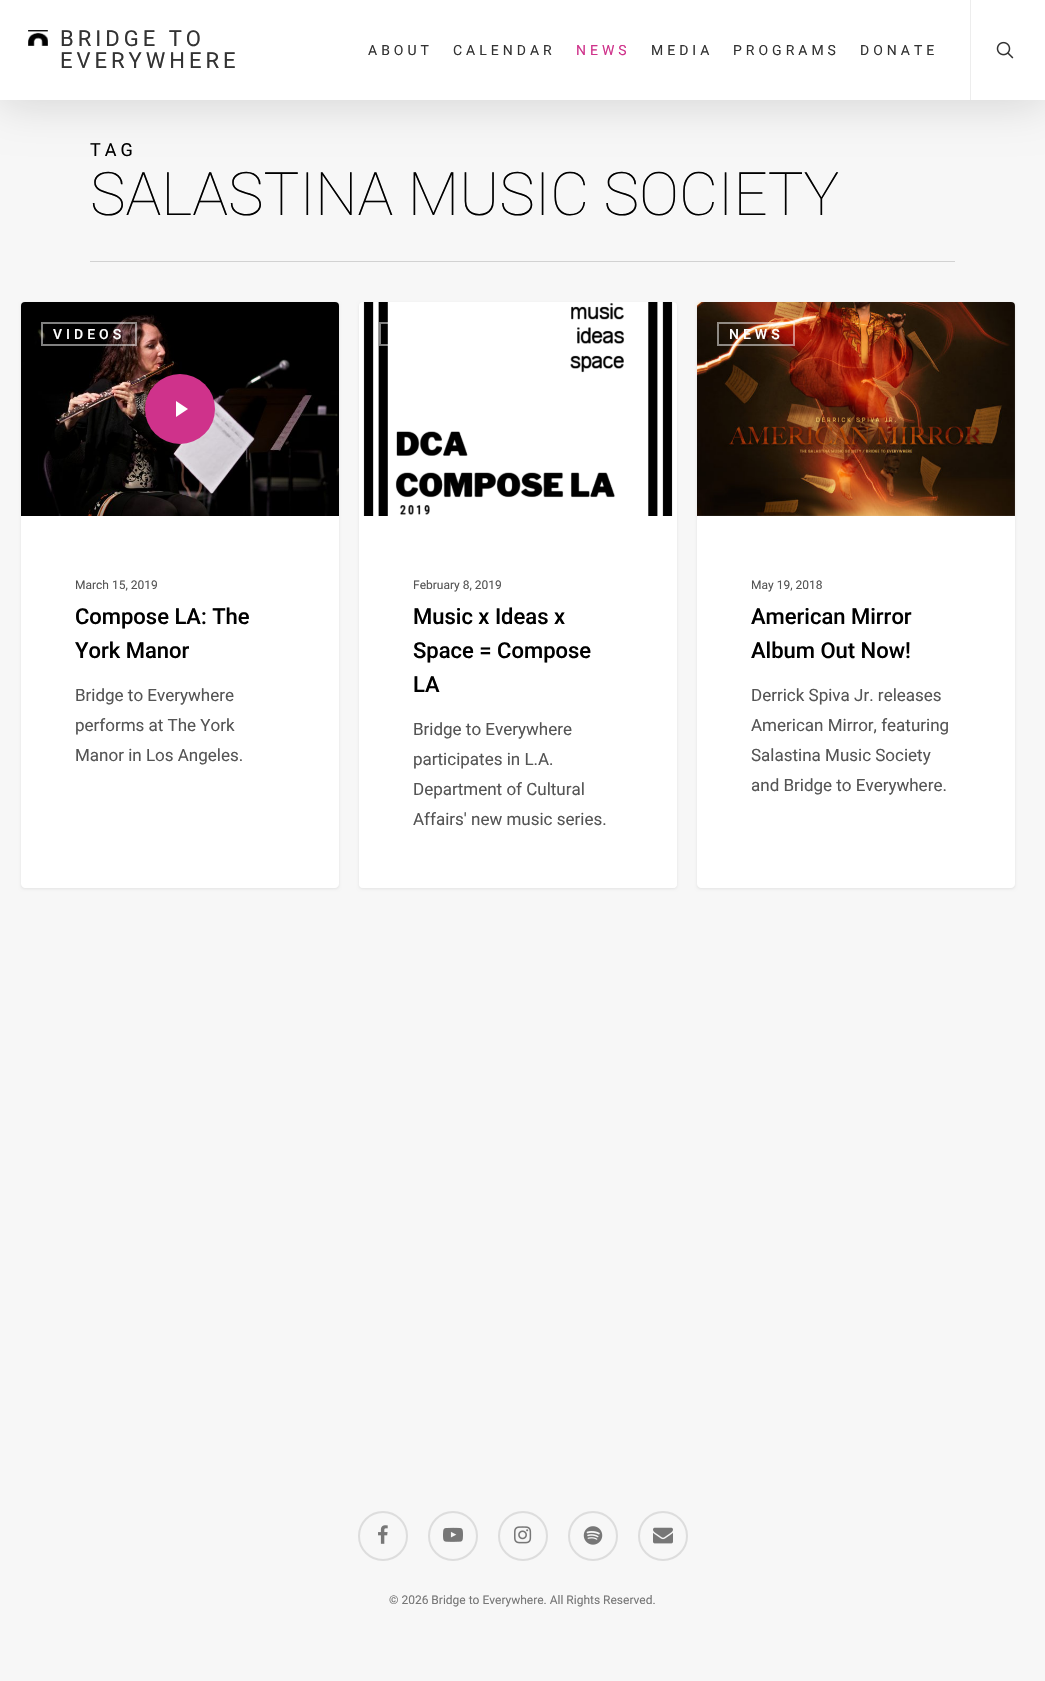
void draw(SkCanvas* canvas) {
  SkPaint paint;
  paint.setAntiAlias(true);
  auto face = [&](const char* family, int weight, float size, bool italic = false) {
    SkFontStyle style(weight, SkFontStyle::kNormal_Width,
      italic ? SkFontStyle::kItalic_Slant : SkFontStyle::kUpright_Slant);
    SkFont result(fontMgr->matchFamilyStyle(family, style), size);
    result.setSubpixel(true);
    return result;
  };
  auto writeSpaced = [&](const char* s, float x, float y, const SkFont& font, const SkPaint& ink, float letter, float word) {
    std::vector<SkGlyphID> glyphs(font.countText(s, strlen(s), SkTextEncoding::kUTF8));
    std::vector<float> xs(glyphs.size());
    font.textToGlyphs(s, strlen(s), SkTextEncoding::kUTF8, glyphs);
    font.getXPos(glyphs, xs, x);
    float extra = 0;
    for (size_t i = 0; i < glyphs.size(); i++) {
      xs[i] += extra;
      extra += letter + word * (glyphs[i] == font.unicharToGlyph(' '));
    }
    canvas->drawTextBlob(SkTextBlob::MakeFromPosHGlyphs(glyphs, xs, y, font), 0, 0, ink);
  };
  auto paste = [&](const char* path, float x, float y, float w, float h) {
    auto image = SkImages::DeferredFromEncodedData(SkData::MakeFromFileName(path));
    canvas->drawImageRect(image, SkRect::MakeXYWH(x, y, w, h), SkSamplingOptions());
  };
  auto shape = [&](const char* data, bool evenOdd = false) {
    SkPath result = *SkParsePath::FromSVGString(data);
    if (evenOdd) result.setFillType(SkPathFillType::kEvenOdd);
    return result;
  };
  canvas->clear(0xfff7f7f7);
  paint.setColor(0x26000000);
  paint.setMaskFilter(SkMaskFilter::MakeBlur(kNormal_SkBlurStyle, 22.5f));
  canvas->drawRect(SkRect::MakeXYWH(0, 3, 1045, 100), paint);
  paint.setMaskFilter(nullptr);
  paint.setColor(0xffffffff);
  canvas->drawRect(SkRect::MakeXYWH(0, 0, 1045, 100), paint);
  paste("img/1.png", 28, 30, 20, 16);
  paint.setColor(0xffededed);
  canvas->drawRect(SkRect::MakeXYWH(970, 0, 1, 100), paint);
  paste("img/2.png", 996, 41, 18, 18);
  paint.setColor(0xffd2d2d2);
  canvas->drawRect(SkRect::MakeXYWH(90, 261, 865, 1), paint);
  paint.setColor(0x14000000);
  paint.setMaskFilter(SkMaskFilter::MakeBlur(kNormal_SkBlurStyle, 1.5f));
  canvas->drawRoundRect(SkRect::MakeXYWH(21, 303, 318, 586), 4, 4, paint);
  paint.setMaskFilter(nullptr);
  paste("img/3.png", 21, 302, 318, 214);
  paint.setColor(0xffcf328b);
  canvas->drawCircle(180, 409, 35, paint);
  paint.setColor(0xffffffff);
  canvas->drawPath(shape("M176 401V417L188 409Z"), paint);
  paint.setStroke(true);
  paint.setStrokeWidth(2);
  paint.setColor(0x80ffffff);
  canvas->drawRect(SkRect::MakeXYWH(42, 323, 94, 22), paint);
  paint.setStroke(false);
  paint.setColor(0xffffffff);
  canvas->drawPath(shape("M21 516H339V884C339 886 337 888 335 888H25C23 888 21 886 21 884Z"), paint);
  paint.setColor(0x14000000);
  paint.setMaskFilter(SkMaskFilter::MakeBlur(kNormal_SkBlurStyle, 1.5f));
  canvas->drawRoundRect(SkRect::MakeXYWH(359, 303, 318, 586), 4, 4, paint);
  paint.setMaskFilter(nullptr);
  paint.setColor(0xffffffff);
  canvas->drawRoundRect(SkRect::MakeXYWH(359, 302, 318, 586), 4, 4, paint);
  paste("img/4.png", 363, 302, 310, 214);
  paint.setStroke(true);
  paint.setColor(0x80ffffff);
  canvas->drawRect(SkRect::MakeXYWH(380, 323, 76, 22), paint);
  paint.setStroke(false);
  paint.setColor(0xffffffff);
  canvas->drawPath(shape("M359 516H677V884C677 886 675 888 673 888H363C361 888 359 886 359 884Z"), paint);
  paint.setColor(0x14000000);
  paint.setMaskFilter(SkMaskFilter::MakeBlur(kNormal_SkBlurStyle, 1.5f));
  canvas->drawRoundRect(SkRect::MakeXYWH(697, 303, 318, 586), 4, 4, paint);
  paint.setMaskFilter(nullptr);
  paste("img/5.png", 697, 302, 318, 214);
  paint.setStroke(true);
  paint.setColor(0x80ffffff);
  canvas->drawRect(SkRect::MakeXYWH(718, 323, 76, 22), paint);
  paint.setStroke(false);
  paint.setColor(0xffffffff);
  canvas->drawPath(shape("M697 516H1015V884C1015 886 1013 888 1011 888H701C699 888 697 886 697 884Z"), paint);
  paste("img/6.png", 378, 1525, 10, 19);
  paint.setStroke(true);
  paint.setColor(0xffdddddd);
  canvas->drawCircle(383, 1536, 24, paint);
  paste("img/7.png", 443, 1527, 20, 15);
  canvas->drawCircle(453, 1536, 24, paint);
  paste("img/8.png", 514, 1526, 18, 18);
  canvas->drawCircle(523, 1536, 24, paint);
  paste("img/9.png", 583, 1526, 20, 19);
  canvas->drawCircle(593, 1536, 24, paint);
  paste("img/10.png", 653, 1527, 20, 17);
  canvas->drawCircle(663, 1536, 24, paint);
  auto f0 = face("Roboto", 400, 22);
  paint.setStroke(false);
  paint.setColor(0xff333333);
  writeSpaced("BRIDGE TO", 60, 46, f0, paint, 4, 0);
  writeSpaced("EVERYWHERE", 60, 68, f0, paint, 4, 0);
  auto f1 = face("Roboto", 400, 14);
  writeSpaced("ABOUT", 368, 55, f1, paint, 4, 0);
  writeSpaced("CALENDAR", 453, 55, f1, paint, 4, 0);
  paint.setColor(0xffcf328b);
  writeSpaced("NEWS", 576, 55, f1, paint, 4, 0);
  paint.setColor(0xff333333);
  {
    const struct { const char* s; float x, y; } items[] = {
      {"MEDIA", 651, 55},
      {"PROGRAMS", 733, 55},
      {"DONATE", 860, 55},
    };
    for (auto [s, x, y] : items) {
      writeSpaced(s, x, y, f1, paint, 4, 0);
    }
  }
  auto f2 = face("Roboto", 400, 18);
  paint.setColor(0xff000000);
  writeSpaced("TAG", 90, 156, f2, paint, 4, 0);
  auto f3 = face("Roboto", 100, 60);
  canvas->drawString("SALASTINA MUSIC SOCIETY", 90, 215, f3, paint);
  auto f4 = face("Roboto", 500, 14);
  paint.setColor(0xffffffff);
  writeSpaced("VIDEOS", 53, 339, f4, paint, 4, 0);
  auto f5 = face("Roboto", 400, 12);
  paint.setColor(0xff555555);
  canvas->drawString("March 15, 2019", 75, 589, f5, paint);
  auto f6 = face("Roboto", 500, 22);
  paint.setColor(0xff000000);
  canvas->drawString("Compose LA: The", 75, 624, f6, paint);
  canvas->drawString("York Manor", 75, 658, f6, paint);
  auto f7 = face("Roboto", 400, 17);
  paint.setColor(0xff555555);
  {
    const struct { const char* s; float x, y; } items[] = {
      {"Bridge to Everywhere", 75, 701},
      {"performs at The York", 75, 731},
      {"Manor in Los Angeles.", 75, 761},
    };
    for (auto [s, x, y] : items) {
      canvas->drawString(s, x, y, f7, paint);
    }
  }
  canvas->drawString("February 8, 2019", 413, 589, f5, paint);
  paint.setColor(0xff000000);
  {
    const struct { const char* s; float x, y; } items[] = {
      {"Music x Ideas x", 413, 624},
      {"Space = Compose", 413, 658},
      {"LA", 413, 692},
    };
    for (auto [s, x, y] : items) {
      canvas->drawString(s, x, y, f6, paint);
    }
  }
  paint.setColor(0xff555555);
  {
    const struct { const char* s; float x, y; } items[] = {
      {"Bridge to Everywhere", 413, 735},
      {"participates in L.A.", 413, 765},
      {"Department of Cultural", 413, 795},
      {"Affairs' new music series.", 413, 825},
    };
    for (auto [s, x, y] : items) {
      canvas->drawString(s, x, y, f7, paint);
    }
  }
  paint.setColor(0xffffffff);
  writeSpaced("NEWS", 729, 339, f4, paint, 4, 0);
  paint.setColor(0xff555555);
  canvas->drawString("May 19, 2018", 751, 589, f5, paint);
  paint.setColor(0xff000000);
  canvas->drawString("American Mirror", 751, 624, f6, paint);
  canvas->drawString("Album Out Now!", 751, 658, f6, paint);
  paint.setColor(0xff555555);
  {
    const struct { const char* s; float x, y; } items[] = {
      {"Derrick Spiva Jr. releases", 751, 701},
      {"American Mirror, featuring", 751, 731},
      {"Salastina Music Society", 751, 761},
      {"and Bridge to Everywhere.", 751, 791},
    };
    for (auto [s, x, y] : items) {
      canvas->drawString(s, x, y, f7, paint);
    }
  }
  paint.setColor(0xff777777);
  canvas->drawString("© 2026 Bridge to Everywhere. All Rights Reserved.", 389, 1604, f5, paint);
}
